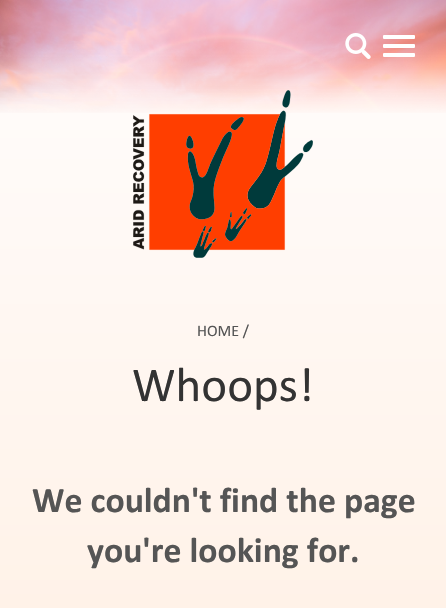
void draw(SkCanvas* canvas) {
  SkPaint paint;
  paint.setAntiAlias(true);
  auto face = [&](const char* family, int weight, float size, bool italic = false) {
    SkFontStyle style(weight, SkFontStyle::kNormal_Width,
      italic ? SkFontStyle::kItalic_Slant : SkFontStyle::kUpright_Slant);
    SkFont result(fontMgr->matchFamilyStyle(family, style), size);
    result.setSubpixel(true);
    return result;
  };
  auto paste = [&](const char* path, float x, float y, float w, float h) {
    auto image = SkImages::DeferredFromEncodedData(SkData::MakeFromFileName(path));
    canvas->drawImageRect(image, SkRect::MakeXYWH(x, y, w, h), SkSamplingOptions());
  };
  canvas->clear(0xffffffff);
  {
    const SkColor colors[] = {0xfffffdfd, 0xfffff2e8};
    const float stops[] = {0, 1};
    const SkPoint ends[] = {{223, 0}, {223, 608}};
    paint.setShader(SkGradientShader::MakeLinear(ends, colors, stops, 2, SkTileMode::kClamp));
    paint.setAlpha(255);
  }
  canvas->drawRect(SkRect::MakeXYWH(0, 45, 446, 563), paint);
  paste("img/3.png", 0, 0, 446, 113);
  paste("img/1.png", 345, 33, 26, 26);
  paint.setShader(nullptr);
  paint.setColor(0xffffffff);
  canvas->drawRoundRect(SkRect::MakeXYWH(383, 35, 32, 4), 1, 1, paint);
  canvas->drawRoundRect(SkRect::MakeXYWH(383, 44, 32, 4), 1, 1, paint);
  canvas->drawRoundRect(SkRect::MakeXYWH(383, 53, 32, 4), 1, 1, paint);
  paste("img/2.png", 133, 90, 180, 168);
  auto f0 = face("Calibri", 400, 16);
  paint.setColor(0xff555555);
  canvas->drawString("HOME /", 197, 336, f0, paint);
  auto f1 = face("Calibri", 400, 49);
  paint.setColor(0xff333333);
  canvas->drawString("Whoops!", 132, 401, f1, paint);
  auto f2 = face("Calibri", 700, 35.75f);
  paint.setColor(0xff555555);
  canvas->drawString("We couldn't find the page", 32, 512, f2, paint);
  canvas->drawString("you're looking for.", 87, 562, f2, paint);
}
